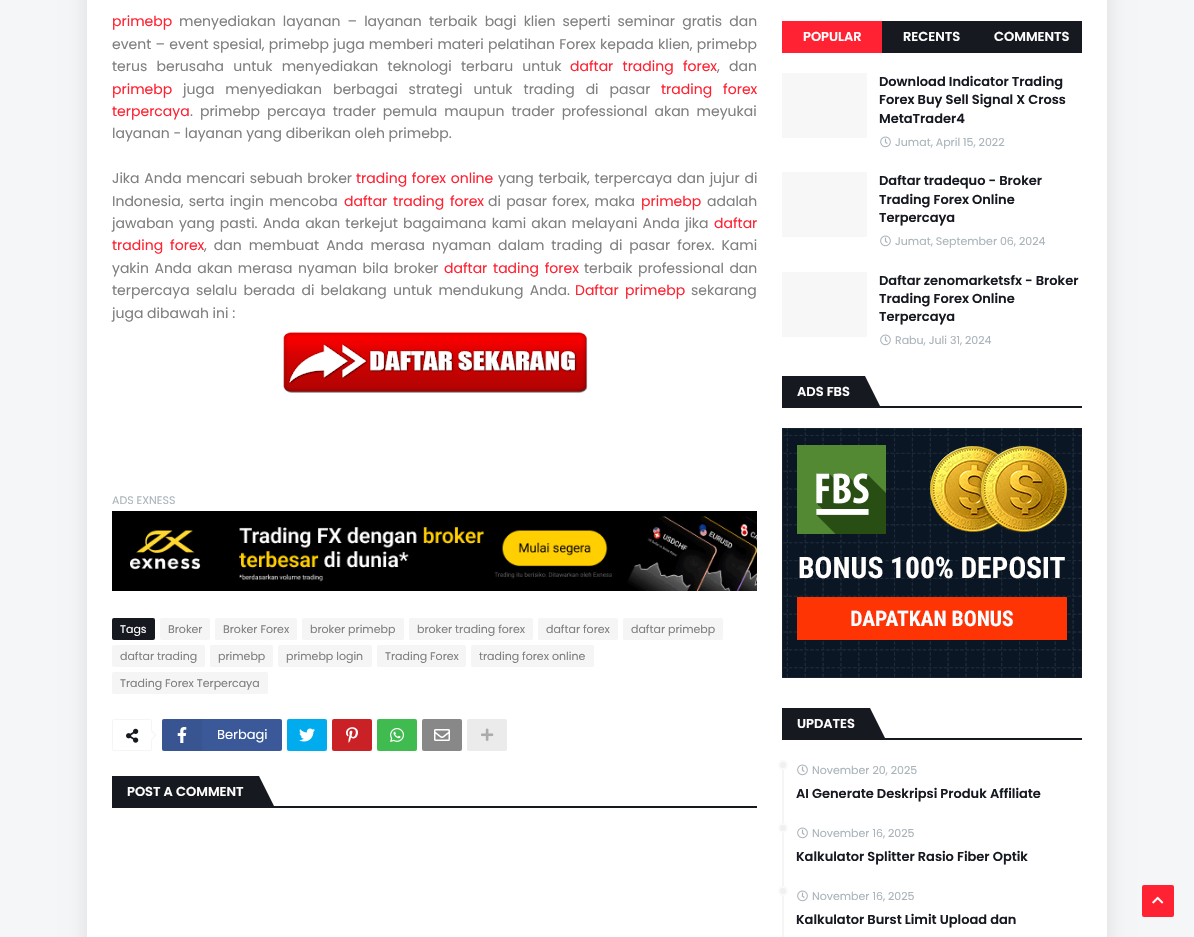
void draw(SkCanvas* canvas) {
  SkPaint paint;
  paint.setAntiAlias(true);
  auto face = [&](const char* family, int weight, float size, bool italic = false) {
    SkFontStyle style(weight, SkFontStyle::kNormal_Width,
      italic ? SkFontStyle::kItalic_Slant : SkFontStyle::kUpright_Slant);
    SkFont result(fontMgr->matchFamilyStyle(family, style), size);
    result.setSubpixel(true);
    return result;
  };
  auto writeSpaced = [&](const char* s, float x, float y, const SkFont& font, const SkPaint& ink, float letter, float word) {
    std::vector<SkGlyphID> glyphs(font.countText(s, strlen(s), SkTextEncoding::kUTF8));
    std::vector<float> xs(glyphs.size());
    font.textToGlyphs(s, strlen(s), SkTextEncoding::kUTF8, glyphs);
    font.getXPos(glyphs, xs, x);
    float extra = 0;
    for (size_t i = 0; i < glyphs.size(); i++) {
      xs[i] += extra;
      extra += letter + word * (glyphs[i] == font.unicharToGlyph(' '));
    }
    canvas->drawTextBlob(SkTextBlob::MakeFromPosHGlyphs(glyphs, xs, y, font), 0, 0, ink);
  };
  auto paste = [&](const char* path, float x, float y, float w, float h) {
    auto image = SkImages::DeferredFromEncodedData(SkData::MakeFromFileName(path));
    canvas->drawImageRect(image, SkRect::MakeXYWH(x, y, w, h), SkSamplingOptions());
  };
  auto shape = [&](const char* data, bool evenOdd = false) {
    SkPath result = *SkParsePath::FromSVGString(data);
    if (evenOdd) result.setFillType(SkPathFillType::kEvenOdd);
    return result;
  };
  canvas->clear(0xfff5f6f7);
  paint.setColor(0x1a000000);
  paint.setMaskFilter(SkMaskFilter::MakeBlur(kNormal_SkBlurStyle, 10));
  canvas->drawRect(SkRect::MakeXYWH(87, -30, 1020, 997), paint);
  paint.setMaskFilter(nullptr);
  paint.setColor(0xffffffff);
  canvas->drawRect(SkRect::MakeXYWH(87, 0, 1020, 937), paint);
  paste("img/1.png", 283, 332, 305, 61);
  paste("img/2.png", 112, 511, 645, 80);
  paint.setColor(0xff171921);
  canvas->drawRoundRect(SkRect::MakeXYWH(112, 618, 43, 22), 2, 2, paint);
  paint.setColor(0xfff5f5f5);
  canvas->drawRoundRect(SkRect::MakeXYWH(160, 618, 50, 22), 2, 2, paint);
  canvas->drawRoundRect(SkRect::MakeXYWH(215, 618, 82, 22), 2, 2, paint);
  canvas->drawRoundRect(SkRect::MakeXYWH(302, 618, 102, 22), 2, 2, paint);
  canvas->drawRoundRect(SkRect::MakeXYWH(409, 618, 124, 22), 2, 2, paint);
  canvas->drawRoundRect(SkRect::MakeXYWH(538, 618, 80, 22), 2, 2, paint);
  canvas->drawRoundRect(SkRect::MakeXYWH(623, 618, 100, 22), 2, 2, paint);
  canvas->drawRoundRect(SkRect::MakeXYWH(112, 645, 93, 22), 2, 2, paint);
  canvas->drawRoundRect(SkRect::MakeXYWH(210, 645, 63, 22), 2, 2, paint);
  canvas->drawRoundRect(SkRect::MakeXYWH(278, 645, 94, 22), 2, 2, paint);
  canvas->drawRoundRect(SkRect::MakeXYWH(377, 645, 89, 22), 2, 2, paint);
  canvas->drawRoundRect(SkRect::MakeXYWH(471, 645, 123, 22), 2, 2, paint);
  canvas->drawRoundRect(SkRect::MakeXYWH(112, 672, 156, 22), 2, 2, paint);
  paint.setStroke(true);
  paint.setStrokeWidth(1);
  canvas->drawRoundRect(SkRect::MakeXYWH(112.5f, 719.5f, 39, 31), 1.5f, 1.5f, paint);
  paste("img/3.png", 126, 728, 13, 15);
  paint.setStroke(false);
  paint.setColor(0xffffffff);
  canvas->drawPath(shape("M151 729.5L156.5 735L151 741L145.5 735Z"), paint);
  paint.setColor(0xfff5f5f5);
  canvas->drawPath(shape("M151 729.5L156.5 735H155L151 731ZM156.5 735L151 741V739.5L155 735Z"), paint);
  paint.setColor(0xff3b5999);
  canvas->drawRoundRect(SkRect::MakeXYWH(162, 719, 120, 32), 2, 2, paint);
  paint.setColor(0x0d000000);
  canvas->drawRect(SkRect::MakeXYWH(162, 719, 40, 32), paint);
  paste("img/4.png", 177, 727, 10, 16);
  paint.setColor(0xff00acee);
  canvas->drawRoundRect(SkRect::MakeXYWH(287, 719, 40, 32), 2, 2, paint);
  paste("img/5.png", 299, 728, 16, 14);
  paint.setColor(0xffca2127);
  canvas->drawRoundRect(SkRect::MakeXYWH(332, 719, 40, 32), 2, 2, paint);
  paste("img/6.png", 346, 727, 12, 16);
  paint.setColor(0xff3fbb50);
  canvas->drawRoundRect(SkRect::MakeXYWH(377, 719, 40, 32), 2, 2, paint);
  paste("img/7.png", 390, 728, 14, 14);
  paint.setColor(0xff888888);
  canvas->drawRoundRect(SkRect::MakeXYWH(422, 719, 40, 32), 2, 2, paint);
  paste("img/8.png", 434, 729, 16, 12);
  paint.setColor(0xffebebeb);
  canvas->drawRoundRect(SkRect::MakeXYWH(467, 719, 40, 32), 2, 2, paint);
  paste("img/9.png", 481, 728, 13, 13);
  paint.setColor(0xff171921);
  canvas->drawRect(SkRect::MakeXYWH(274, 806, 483, 2), paint);
  canvas->drawRect(SkRect::MakeXYWH(112, 776, 147, 32), paint);
  canvas->drawPath(shape("M259 808V776L275 808Z"), paint);
  {
    const struct { float x, y, w, h; SkColor color; } items[] = {
      {882, 21, 200, 32, 0xff171921},
      {782, 21, 100, 32, 0xffff2232},
      {782, 73, 85, 65, 0xfff7f7f7},
    };
    for (auto [x, y, w, h, color] : items) {
      paint.setColor(color);
      canvas->drawRect(SkRect::MakeXYWH(x, y, w, h), paint);
    }
  }
  paste("img/10.png", 880, 136, 11, 12);
  canvas->drawRect(SkRect::MakeXYWH(782, 172, 85, 65), paint);
  paste("img/10.png", 880, 235, 11, 12);
  canvas->drawRect(SkRect::MakeXYWH(782, 272, 85, 65), paint);
  paste("img/10.png", 880, 334, 11, 12);
  paint.setColor(0xff171921);
  canvas->drawRect(SkRect::MakeXYWH(880, 406, 202, 2), paint);
  canvas->drawRect(SkRect::MakeXYWH(782, 376, 83, 32), paint);
  canvas->drawPath(shape("M865 408V376L881 408Z"), paint);
  paste("img/11.png", 782, 428, 300, 250);
  canvas->drawRect(SkRect::MakeXYWH(885, 738, 197, 2), paint);
  canvas->drawRect(SkRect::MakeXYWH(782, 708, 88, 32), paint);
  canvas->drawPath(shape("M870 740V708L886 740Z"), paint);
  paint.setColor(0xfff5f5f5);
  canvas->drawRect(SkRect::MakeXYWH(782, 760, 2, 177), paint);
  paint.setColor(0xfff0f0f0);
  canvas->drawCircle(783, 765, 4, paint);
  paint.setStroke(true);
  paint.setStrokeWidth(2);
  paint.setColor(0xfffafafa);
  canvas->drawCircle(783, 765, 4, paint);
  paste("img/10.png", 797, 764, 11, 12);
  paint.setStroke(false);
  paint.setColor(0xfff0f0f0);
  canvas->drawCircle(783, 828, 4, paint);
  paint.setStroke(true);
  paint.setColor(0xfffafafa);
  canvas->drawCircle(783, 828, 4, paint);
  paste("img/10.png", 797, 827, 11, 12);
  paint.setStroke(false);
  paint.setColor(0xfff0f0f0);
  canvas->drawCircle(783, 891, 4, paint);
  paint.setStroke(true);
  paint.setColor(0xfffafafa);
  canvas->drawCircle(783, 891, 4, paint);
  paste("img/10.png", 797, 890, 11, 12);
  paint.setStroke(false);
  paint.setColor(0xffff2232);
  canvas->drawRoundRect(SkRect::MakeXYWH(1142, 885, 32, 32), 2, 2, paint);
  paste("img/12.png", 1152, 896, 12, 8);
  auto f0 = face("Poppins", 400, 14);
  canvas->drawString("primebp", 112, 26, f0, paint);
  paint.setColor(0xff7f7f7f);
  writeSpaced("menyediakan layanan – layanan terbaik bagi klien seperti seminar gratis dan", 179, 26, f0, paint, 0, 3.4f);
  writeSpaced("event – event spesial, primebp juga memberi materi pelatihan Forex kepada klien, primebp", 112, 49, f0, paint, 0, 0.5f);
  writeSpaced("terus berusaha untuk menyediakan teknologi terbaru untuk", 112, 71, f0, paint, 0, 5.5f);
  paint.setColor(0xffff2232);
  writeSpaced("daftar trading forex", 570, 71, f0, paint, 0, 5.5f);
  paint.setColor(0xff7f7f7f);
  writeSpaced(", dan", 717, 71, f0, paint, 0, 5.5f);
  paint.setColor(0xffff2232);
  canvas->drawString("primebp", 112, 94, f0, paint);
  paint.setColor(0xff7f7f7f);
  writeSpaced("juga menyediakan berbagai strategi untuk trading di pasar", 183, 94, f0, paint, 0, 7.25f);
  paint.setColor(0xffff2232);
  writeSpaced("trading forex", 661, 94, f0, paint, 0, 7.25f);
  canvas->drawString("terpercaya", 112, 116, f0, paint);
  paint.setColor(0xff7f7f7f);
  writeSpaced(". primebp percaya trader pemula maupun trader professional akan meyukai", 190, 116, f0, paint, 0, 3.25f);
  canvas->drawString("layanan - layanan yang diberikan oleh primebp.", 112, 138, f0, paint);
  writeSpaced("Jika Anda mencari sebuah broker", 112, 183, f0, paint, 0, 1);
  paint.setColor(0xffff2232);
  writeSpaced("trading forex online", 356, 183, f0, paint, 0, 1);
  paint.setColor(0xff7f7f7f);
  writeSpaced("yang terbaik, terpercaya dan jujur di", 498, 183, f0, paint, 0, 1);
  writeSpaced("Indonesia, serta ingin mencoba", 112, 206, f0, paint, 0, 1.5f);
  paint.setColor(0xffff2232);
  writeSpaced("daftar trading forex", 344, 206, f0, paint, 0, 2);
  paint.setColor(0xff7f7f7f);
  writeSpaced("di pasar forex, maka", 488, 206, f0, paint, 0, 1.5f);
  paint.setColor(0xffff2232);
  canvas->drawString("primebp", 641, 206, f0, paint);
  paint.setColor(0xff7f7f7f);
  canvas->drawString("adalah", 707, 206, f0, paint);
  writeSpaced("jawaban yang pasti. Anda akan terkejut bagaimana kami akan melayani Anda jika", 112, 228, f0, paint, 0, 1.4f);
  paint.setColor(0xffff2232);
  canvas->drawString("daftar", 714, 228, f0, paint);
  writeSpaced("trading forex", 112, 250, f0, paint, 0, 3.25f);
  paint.setColor(0xff7f7f7f);
  writeSpaced(", dan membuat Anda merasa nyaman dalam trading di pasar forex. Kami", 204, 250, f0, paint, 0, 3.25f);
  writeSpaced("yakin Anda akan merasa nyaman bila broker", 112, 273, f0, paint, 0, 1.75f);
  paint.setColor(0xffff2232);
  writeSpaced("daftar tading forex", 444, 273, f0, paint, 0, 2);
  paint.setColor(0xff7f7f7f);
  writeSpaced("terbaik professional dan", 584, 273, f0, paint, 0, 1.75f);
  writeSpaced("terpercaya selalu berada di belakang untuk mendukung Anda.", 112, 295, f0, paint, 0, 2.5f);
  paint.setColor(0xffff2232);
  writeSpaced("Daftar primebp", 575, 295, f0, paint, 0, 2.5f);
  paint.setColor(0xff7f7f7f);
  canvas->drawString("sekarang", 691, 295, f0, paint);
  canvas->drawString("juga dibawah ini :", 112, 318, f0, paint);
  auto f1 = face("Poppins", 400, 11);
  paint.setColor(0xffa9b4ba);
  canvas->drawString("ADS EXNESS", 112, 504, f1, paint);
  paint.setColor(0xffffffff);
  canvas->drawString("Tags", 120, 633, f1, paint);
  paint.setColor(0xff7f7f7f);
  {
    const struct { const char* s; float x, y; } items[] = {
      {"Broker", 168, 633},
      {"Broker Forex", 223, 633},
      {"broker primebp", 310, 633},
      {"broker trading forex", 417, 633},
      {"daftar forex", 546, 633},
      {"daftar primebp", 631, 633},
      {"daftar trading", 120, 660},
      {"primebp", 218, 660},
      {"primebp login", 286, 660},
      {"Trading Forex", 385, 660},
      {"trading forex online", 479, 660},
      {"Trading Forex Terpercaya", 120, 687},
    };
    for (auto [s, x, y] : items) {
      canvas->drawString(s, x, y, f1, paint);
    }
  }
  auto f2 = face("Poppins", 400, 13);
  paint.setColor(0xffffffff);
  canvas->drawString("Berbagi", 217, 739, f2, paint);
  auto f3 = face("Poppins", 600, 13);
  {
    const struct { const char* s; float x, y; } items[] = {
      {"POST A COMMENT", 127, 796},
      {"POPULAR", 803, 41},
      {"RECENTS", 903, 41},
      {"COMMENTS", 994, 41},
    };
    for (auto [s, x, y] : items) {
      canvas->drawString(s, x, y, f3, paint);
    }
  }
  paint.setColor(0xff171921);
  {
    const struct { const char* s; float x, y; } items[] = {
      {"Download Indicator Trading", 879, 86},
      {"Forex Buy Sell Signal X Cross", 879, 104},
      {"MetaTrader4", 879, 123},
    };
    for (auto [s, x, y] : items) {
      canvas->drawString(s, x, y, f3, paint);
    }
  }
  paint.setColor(0xffa9b4ba);
  canvas->drawString("Jumat, April 15, 2022", 895, 146, f1, paint);
  paint.setColor(0xff171921);
  {
    const struct { const char* s; float x, y; } items[] = {
      {"Daftar tradequo - Broker", 879, 185},
      {"Trading Forex Online", 879, 204},
      {"Terpercaya", 879, 222},
    };
    for (auto [s, x, y] : items) {
      canvas->drawString(s, x, y, f3, paint);
    }
  }
  paint.setColor(0xffa9b4ba);
  canvas->drawString("Jumat, September 06, 2024", 895, 245, f1, paint);
  paint.setColor(0xff171921);
  {
    const struct { const char* s; float x, y; } items[] = {
      {"Daftar zenomarketsfx - Broker", 879, 285},
      {"Trading Forex Online", 879, 303},
      {"Terpercaya", 879, 321},
    };
    for (auto [s, x, y] : items) {
      canvas->drawString(s, x, y, f3, paint);
    }
  }
  paint.setColor(0xffa9b4ba);
  canvas->drawString("Rabu, Juli 31, 2024", 895, 344, f1, paint);
  paint.setColor(0xffffffff);
  canvas->drawString("ADS FBS", 797, 396, f3, paint);
  canvas->drawString("UPDATES", 797, 728, f3, paint);
  paint.setColor(0xffa9b4ba);
  canvas->drawString("November 20, 2025", 812, 774, f1, paint);
  paint.setColor(0xff171921);
  canvas->drawString("AI Generate Deskripsi Produk Affiliate", 796, 798, f3, paint);
  paint.setColor(0xffa9b4ba);
  canvas->drawString("November 16, 2025", 812, 837, f1, paint);
  paint.setColor(0xff171921);
  canvas->drawString("Kalkulator Splitter Rasio Fiber Optik", 796, 861, f3, paint);
  paint.setColor(0xffa9b4ba);
  canvas->drawString("November 16, 2025", 812, 900, f1, paint);
  paint.setColor(0xff171921);
  canvas->drawString("Kalkulator Burst Limit Upload dan", 796, 924, f3, paint);
}
